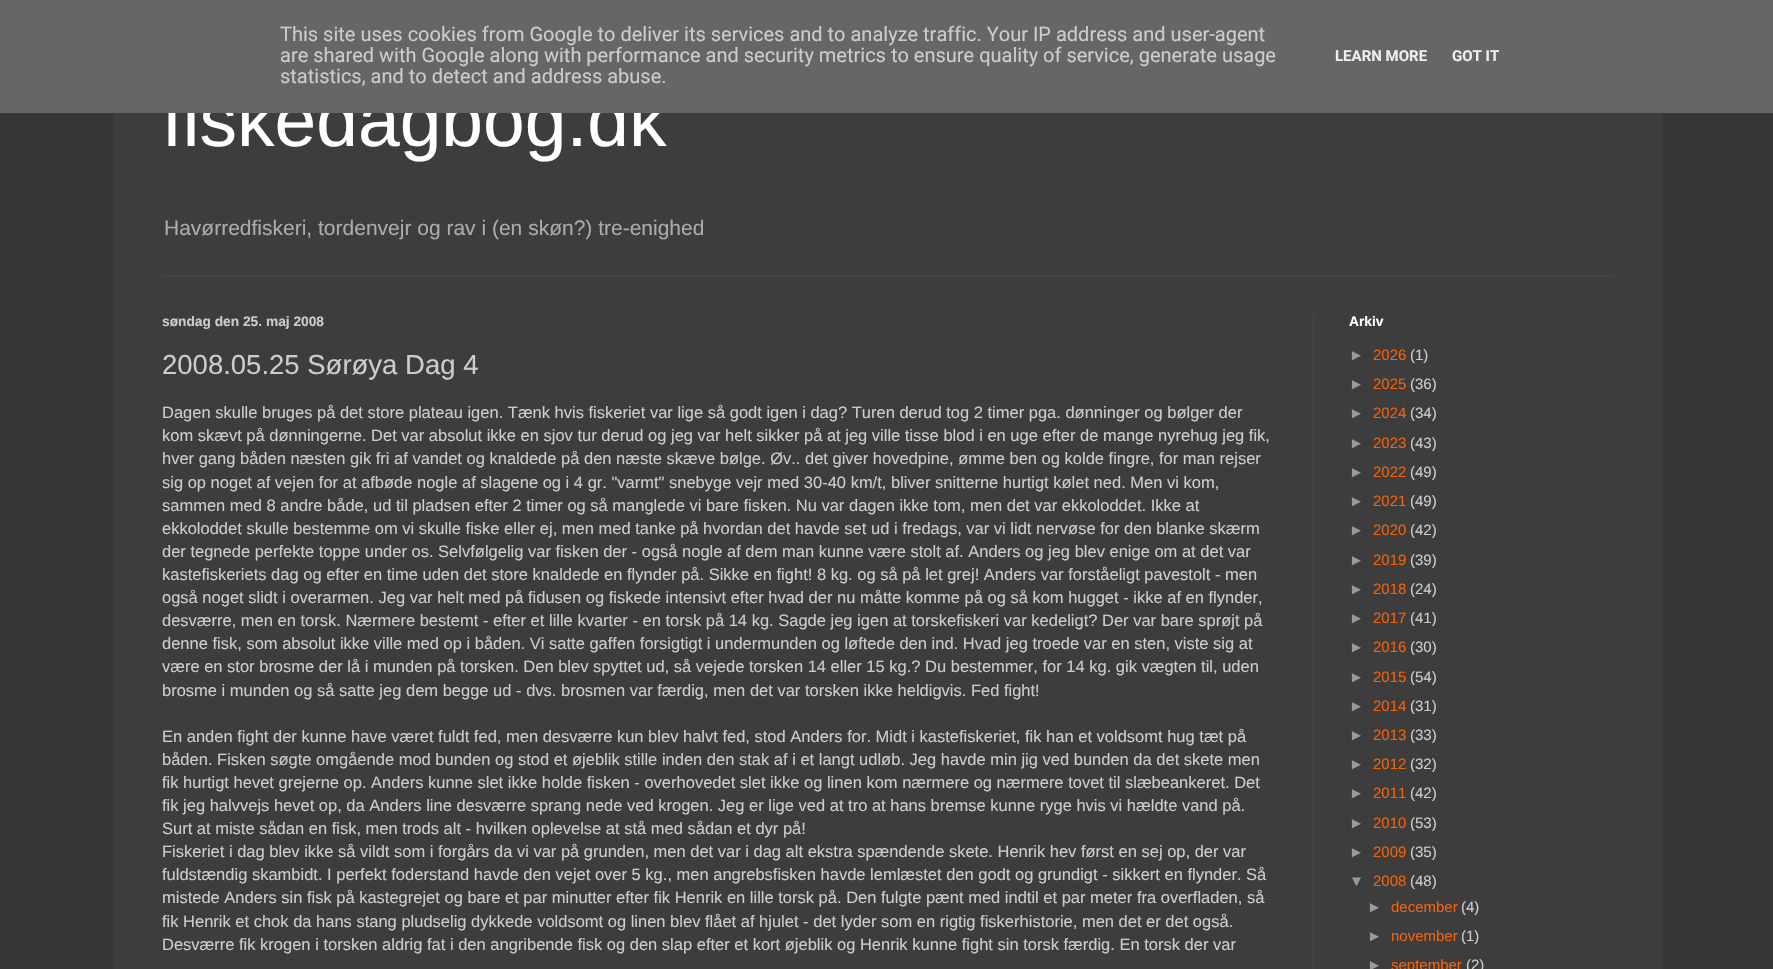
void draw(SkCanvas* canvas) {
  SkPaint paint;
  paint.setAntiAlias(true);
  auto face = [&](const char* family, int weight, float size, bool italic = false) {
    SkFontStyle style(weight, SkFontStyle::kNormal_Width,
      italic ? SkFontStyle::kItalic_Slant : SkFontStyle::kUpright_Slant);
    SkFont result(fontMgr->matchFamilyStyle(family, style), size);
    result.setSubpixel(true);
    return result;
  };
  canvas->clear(0xff363636);
  {
    const struct { float x, y, w, h; SkColor color; } items[] = {
      {113, 113, 1550, 856, 0xff3d3d3d},
      {163, 275, 1450, 1, 0xff474747},
      {1313, 314, 1, 655, 0xff474747},
    };
    for (auto [x, y, w, h, color] : items) {
      paint.setColor(color);
      canvas->drawRect(SkRect::MakeXYWH(x, y, w, h), paint);
    }
  }
  auto f0 = face("Liberation Sans", 400, 75);
  paint.setColor(0xffffffff);
  canvas->drawString("fiskedagbog.dk", 162, 146, f0, paint);
  paint.setColor(0xff666666);
  canvas->drawRect(SkRect::MakeXYWH(0, 0, 1773, 113), paint);
  auto f1 = face("Roboto", 700, 15);
  paint.setColor(0xffeeeeee);
  canvas->drawString("GOT IT", 1452, 61, f1, paint);
  canvas->drawString("LEARN MORE", 1335, 61, f1, paint);
  auto f2 = face("Roboto", 400, 20);
  paint.setColor(0xffcccccc);
  {
    const struct { const char* s; float x, y; } items[] = {
      {"statistics, and to detect and address abuse.", 280, 83},
      {"are shared with Google along with performance and security metrics to ensure quality of service, generate usage", 280, 62},
      {"This site uses cookies from Google to deliver its services and to analyze traffic. Your IP address and user-agent", 280, 41},
    };
    for (auto [s, x, y] : items) {
      canvas->drawString(s, x, y, f2, paint);
    }
  }
  auto f3 = face("Liberation Sans", 400, 21);
  paint.setColor(0xffababab);
  canvas->drawString("Havørredfiskeri, tordenvejr og rav i (en skøn?) tre-enighed", 164, 235, f3, paint);
  auto f4 = face("Liberation Sans", 700, 13.75f);
  paint.setColor(0xffcccccc);
  canvas->drawString("søndag den 25. maj 2008", 162, 326, f4, paint);
  auto f5 = face("Liberation Sans", 400, 27.5f);
  canvas->drawString("2008.05.25 Sørøya Dag 4", 162, 374, f5, paint);
  auto f6 = face("Liberation Sans", 400, 16.5f);
  {
    const struct { const char* s; float x, y; } items[] = {
      {"Dagen skulle bruges på det store plateau igen. Tænk hvis fiskeriet var lige så godt igen i dag? Turen derud tog 2 timer pga. dønninger og bølger der", 162, 418},
      {"kom skævt på dønningerne. Det var absolut ikke en sjov tur derud og jeg var helt sikker på at jeg ville tisse blod i en uge efter de mange nyrehug jeg fik,", 162, 441},
      {"hver gang båden næsten gik fri af vandet og knaldede på den næste skæve bølge. Øv.. det giver hovedpine, ømme ben og kolde fingre, for man rejser", 162, 464},
      {"sig op noget af vejen for at afbøde nogle af slagene og i 4 gr. \"varmt\" snebyge vejr med 30-40 km/t, bliver snitterne hurtigt kølet ned. Men vi kom,", 162, 488},
      {"sammen med 8 andre både, ud til pladsen efter 2 timer og så manglede vi bare fisken. Nu var dagen ikke tom, men det var ekkoloddet. Ikke at", 162, 511},
      {"ekkoloddet skulle bestemme om vi skulle fiske eller ej, men med tanke på hvordan det havde set ud i fredags, var vi lidt nervøse for den blanke skærm", 162, 534},
      {"der tegnede perfekte toppe under os. Selvfølgelig", 162, 557},
      {"var fisken der - også nogle af dem man kunne være stolt af. Anders og jeg blev enige om at det var", 528, 557},
      {"kastefiskeriets dag og efter en time uden det store knaldede en flynder på. Sikke en fight! 8 kg. og så på let grej! Anders var forståeligt pavestolt - men", 162, 580},
      {"også noget slidt i overarmen. Jeg var helt med på fidusen og fiskede intensivt efter hvad der nu måtte komme på og så kom hugget - ikke af en flynder,", 162, 603},
      {"desværre, men en torsk. Nærmere bestemt - efter et lille kvarter - en torsk på 14 kg. Sagde jeg igen at torskefiskeri var kedeligt? Der var bare sprøjt på", 162, 626},
      {"denne fisk, som absolut ikke ville med op i båden. Vi satte gaffen forsigtigt i undermunden og løftede den ind. Hvad jeg troede var en sten, viste sig at", 162, 649},
      {"være en stor brosme der lå i munden på torsken. Den blev spyttet ud, så vejede torsken 14 eller 15 kg.? Du bestemmer, for 14 kg. gik vægten til, uden", 162, 672},
      {"brosme i munden og så satte jeg dem begge ud - dvs. brosmen var færdig, men det var torsken ikke heldigvis. Fed fight!", 162, 696},
      {"En anden fight der kunne have været fuldt fed, men desværre kun blev halvt fed, stod Anders for. Midt i kastefiskeriet, fik han et voldsomt hug tæt på", 162, 742},
      {"båden. Fisken søgte omgående mod bunden og stod et øjeblik stille inden den stak af i et langt udløb. Jeg havde min jig ved bunden da det skete men", 162, 765},
      {"fik hurtigt hevet grejerne op. Anders kunne slet ikke holde fisken - overhovedet slet ikke og linen kom nærmere og nærmere tovet til slæbeankeret. Det", 162, 788},
      {"fik jeg halvvejs hevet op, da Anders line desværre sprang nede ved krogen. Jeg er lige ved at tro at hans bremse kunne ryge hvis vi hældte vand på.", 162, 811},
      {"Surt at miste sådan en fisk, men trods alt - hvilken oplevelse at stå med sådan et dyr på!", 162, 834},
      {"Fiskeriet i dag blev ikke så vildt som i forgårs da vi var på grunden, men det var i dag alt ekstra spændende skete. Henrik hev først en sej op, der var", 162, 857},
      {"fuldstændig skambidt. I perfekt foderstand havde den vejet over 5 kg., men angrebsfisken havde lemlæstet den godt og grundigt - sikkert en flynder. Så", 162, 880},
      {"mistede Anders sin fisk på kastegrejet og bare et par minutter efter fik Henrik en lille torsk på. Den fulgte pænt med indtil et par meter fra overfladen, så", 162, 903},
      {"fik Henrik et chok da hans stang pludselig dykkede voldsomt og linen blev flået af hjulet - det lyder som en rigtig fiskerhistorie, men det er det også.", 162, 927},
      {"Desværre fik krogen i torsken aldrig fat i den angribende fisk og den slap efter et kort øjeblik og Henrik kunne fight sin torsk færdig. En torsk der var", 162, 950},
    };
    for (auto [s, x, y] : items) {
      canvas->drawString(s, x, y, f6, paint);
    }
  }
  paint.setColor(0xffffffff);
  canvas->drawString("Arkiv", 1349, 326, f4, paint);
  auto f7 = face("Liberation Sans", 400, 15);
  paint.setColor(0xff9a9a9a);
  canvas->drawString("►", 1349, 360, f7, paint);
  paint.setColor(0xfff4620a);
  canvas->drawString("2026", 1373, 360, f7, paint);
  paint.setColor(0xffcccccc);
  canvas->drawString("(1)", 1410, 360, f7, paint);
  paint.setColor(0xff9a9a9a);
  canvas->drawString("►", 1349, 389, f7, paint);
  paint.setColor(0xfff4620a);
  canvas->drawString("2025", 1373, 389, f7, paint);
  paint.setColor(0xffcccccc);
  canvas->drawString("(36)", 1410, 389, f7, paint);
  paint.setColor(0xff9a9a9a);
  canvas->drawString("►", 1349, 418, f7, paint);
  paint.setColor(0xfff4620a);
  canvas->drawString("2024", 1373, 418, f7, paint);
  paint.setColor(0xffcccccc);
  canvas->drawString("(34)", 1410, 418, f7, paint);
  paint.setColor(0xff9a9a9a);
  canvas->drawString("►", 1349, 448, f7, paint);
  paint.setColor(0xfff4620a);
  canvas->drawString("2023", 1373, 448, f7, paint);
  paint.setColor(0xffcccccc);
  canvas->drawString("(43)", 1410, 448, f7, paint);
  paint.setColor(0xff9a9a9a);
  canvas->drawString("►", 1349, 477, f7, paint);
  paint.setColor(0xfff4620a);
  canvas->drawString("2022", 1373, 477, f7, paint);
  paint.setColor(0xffcccccc);
  canvas->drawString("(49)", 1410, 477, f7, paint);
  paint.setColor(0xff9a9a9a);
  canvas->drawString("►", 1349, 506, f7, paint);
  paint.setColor(0xfff4620a);
  canvas->drawString("2021", 1373, 506, f7, paint);
  paint.setColor(0xffcccccc);
  canvas->drawString("(49)", 1410, 506, f7, paint);
  paint.setColor(0xff9a9a9a);
  canvas->drawString("►", 1349, 535, f7, paint);
  paint.setColor(0xfff4620a);
  canvas->drawString("2020", 1373, 535, f7, paint);
  paint.setColor(0xffcccccc);
  canvas->drawString("(42)", 1410, 535, f7, paint);
  paint.setColor(0xff9a9a9a);
  canvas->drawString("►", 1349, 565, f7, paint);
  paint.setColor(0xfff4620a);
  canvas->drawString("2019", 1373, 565, f7, paint);
  paint.setColor(0xffcccccc);
  canvas->drawString("(39)", 1410, 565, f7, paint);
  paint.setColor(0xff9a9a9a);
  canvas->drawString("►", 1349, 594, f7, paint);
  paint.setColor(0xfff4620a);
  canvas->drawString("2018", 1373, 594, f7, paint);
  paint.setColor(0xffcccccc);
  canvas->drawString("(24)", 1410, 594, f7, paint);
  paint.setColor(0xff9a9a9a);
  canvas->drawString("►", 1349, 623, f7, paint);
  paint.setColor(0xfff4620a);
  canvas->drawString("2017", 1373, 623, f7, paint);
  paint.setColor(0xffcccccc);
  canvas->drawString("(41)", 1410, 623, f7, paint);
  paint.setColor(0xff9a9a9a);
  canvas->drawString("►", 1349, 652, f7, paint);
  paint.setColor(0xfff4620a);
  canvas->drawString("2016", 1373, 652, f7, paint);
  paint.setColor(0xffcccccc);
  canvas->drawString("(30)", 1410, 652, f7, paint);
  paint.setColor(0xff9a9a9a);
  canvas->drawString("►", 1349, 682, f7, paint);
  paint.setColor(0xfff4620a);
  canvas->drawString("2015", 1373, 682, f7, paint);
  paint.setColor(0xffcccccc);
  canvas->drawString("(54)", 1410, 682, f7, paint);
  paint.setColor(0xff9a9a9a);
  canvas->drawString("►", 1349, 711, f7, paint);
  paint.setColor(0xfff4620a);
  canvas->drawString("2014", 1373, 711, f7, paint);
  paint.setColor(0xffcccccc);
  canvas->drawString("(31)", 1410, 711, f7, paint);
  paint.setColor(0xff9a9a9a);
  canvas->drawString("►", 1349, 740, f7, paint);
  paint.setColor(0xfff4620a);
  canvas->drawString("2013", 1373, 740, f7, paint);
  paint.setColor(0xffcccccc);
  canvas->drawString("(33)", 1410, 740, f7, paint);
  paint.setColor(0xff9a9a9a);
  canvas->drawString("►", 1349, 769, f7, paint);
  paint.setColor(0xfff4620a);
  canvas->drawString("2012", 1373, 769, f7, paint);
  paint.setColor(0xffcccccc);
  canvas->drawString("(32)", 1410, 769, f7, paint);
  paint.setColor(0xff9a9a9a);
  canvas->drawString("►", 1349, 798, f7, paint);
  paint.setColor(0xfff4620a);
  canvas->drawString("2011", 1373, 798, f7, paint);
  paint.setColor(0xffcccccc);
  canvas->drawString("(42)", 1410, 798, f7, paint);
  paint.setColor(0xff9a9a9a);
  canvas->drawString("►", 1349, 828, f7, paint);
  paint.setColor(0xfff4620a);
  canvas->drawString("2010", 1373, 828, f7, paint);
  paint.setColor(0xffcccccc);
  canvas->drawString("(53)", 1410, 828, f7, paint);
  paint.setColor(0xff9a9a9a);
  canvas->drawString("►", 1349, 857, f7, paint);
  paint.setColor(0xfff4620a);
  canvas->drawString("2009", 1373, 857, f7, paint);
  paint.setColor(0xffcccccc);
  canvas->drawString("(35)", 1410, 857, f7, paint);
  paint.setColor(0xff9a9a9a);
  canvas->drawString("▼", 1349, 886, f7, paint);
  paint.setColor(0xfff4620a);
  canvas->drawString("2008", 1373, 886, f7, paint);
  paint.setColor(0xffcccccc);
  canvas->drawString("(48)", 1410, 886, f7, paint);
  paint.setColor(0xff9a9a9a);
  canvas->drawString("►", 1367, 912, f7, paint);
  paint.setColor(0xfff4620a);
  canvas->drawString("december", 1391, 912, f7, paint);
  paint.setColor(0xffcccccc);
  canvas->drawString("(4)", 1461, 912, f7, paint);
  paint.setColor(0xff9a9a9a);
  canvas->drawString("►", 1367, 941, f7, paint);
  paint.setColor(0xfff4620a);
  canvas->drawString("november", 1391, 941, f7, paint);
  paint.setColor(0xffcccccc);
  canvas->drawString("(1)", 1461, 941, f7, paint);
  paint.setColor(0xff9a9a9a);
  canvas->drawString("►", 1367, 970, f7, paint);
  paint.setColor(0xfff4620a);
  canvas->drawString("september", 1391, 970, f7, paint);
  paint.setColor(0xffcccccc);
  canvas->drawString("(2)", 1466, 970, f7, paint);
}
